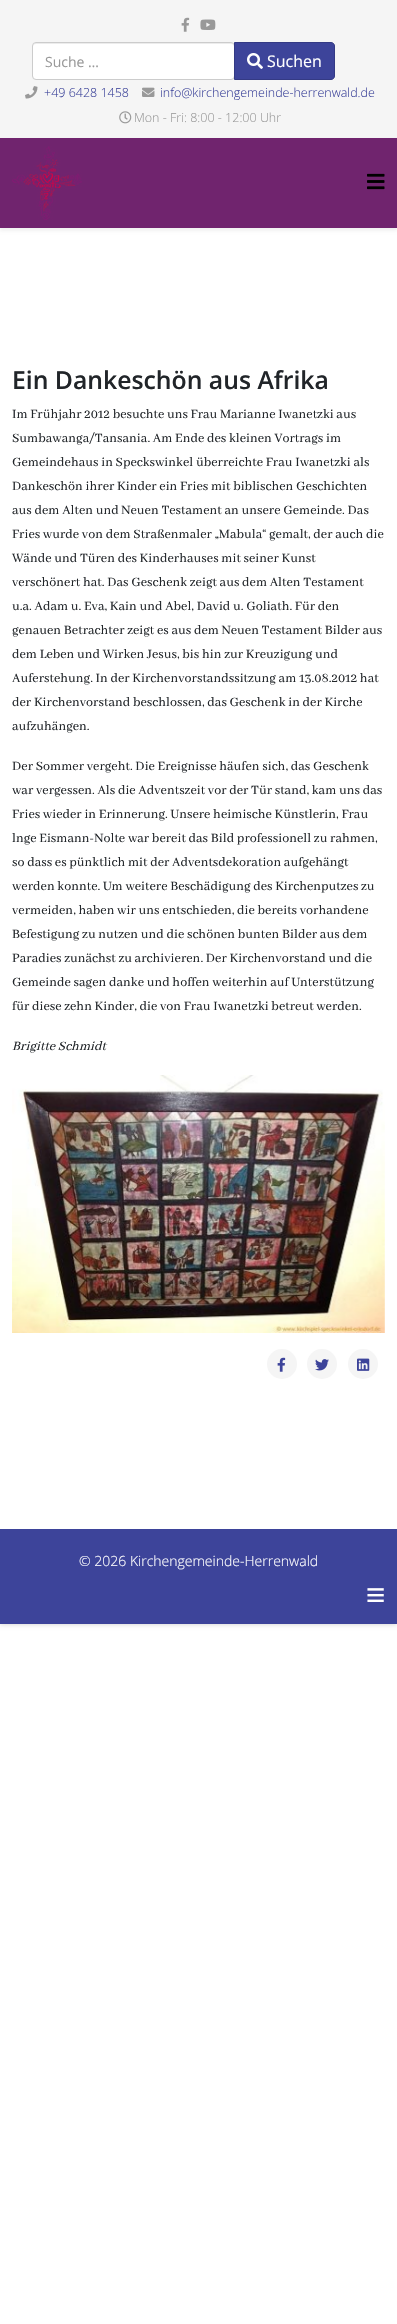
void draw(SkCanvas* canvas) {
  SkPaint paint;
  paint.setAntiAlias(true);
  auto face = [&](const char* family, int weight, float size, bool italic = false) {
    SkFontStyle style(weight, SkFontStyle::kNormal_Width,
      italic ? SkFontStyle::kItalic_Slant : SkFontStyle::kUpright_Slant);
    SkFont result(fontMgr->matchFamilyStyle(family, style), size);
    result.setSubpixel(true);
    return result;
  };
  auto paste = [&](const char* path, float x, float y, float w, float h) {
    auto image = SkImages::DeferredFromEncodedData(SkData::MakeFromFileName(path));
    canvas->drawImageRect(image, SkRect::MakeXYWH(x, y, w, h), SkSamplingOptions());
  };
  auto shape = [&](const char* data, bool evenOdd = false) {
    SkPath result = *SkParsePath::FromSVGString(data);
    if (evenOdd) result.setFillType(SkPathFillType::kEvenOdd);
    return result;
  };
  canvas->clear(0xffffffff);
  paint.setColor(0x33000000);
  paint.setMaskFilter(SkMaskFilter::MakeBlur(kNormal_SkBlurStyle, 2.5f));
  canvas->drawRect(SkRect::MakeXYWH(0, 0, 397, 1624), paint);
  paint.setMaskFilter(nullptr);
  paint.setColor(0xffffffff);
  canvas->drawRect(SkRect::MakeXYWH(0, 228, 397, 1301), paint);
  paint.setColor(0xfff5f5f5);
  canvas->drawRect(SkRect::MakeXYWH(0, 0, 397, 138), paint);
  paste("img/1.png", 181, 17, 9, 15);
  paste("img/2.png", 200, 19, 16, 11);
  paint.setColor(0xffffffff);
  canvas->drawRoundRect(SkRect::MakeXYWH(33, 43, 201, 36), 3, 3, paint);
  paint.setColor(0xffececec);
  canvas->drawPath(shape("M36 44H231C233 44 234 45 234 47C234 45 233 43 231 43H36C34 43 33 45 33 47C33 45 34 44 36 44Z"), paint);
  paint.setStroke(true);
  paint.setStrokeWidth(1);
  paint.setColor(0xffcccccc);
  canvas->drawRoundRect(SkRect::MakeXYWH(32.5f, 42.5f, 202, 37), 3.5f, 3.5f, paint);
  paint.setStroke(false);
  paint.setColor(0xff3d449a);
  canvas->drawPath(shape("M234.5 42.5H331C333 42.5 334.5 44 334.5 46V76C334.5 78 333 79.5 331 79.5H234.5Z"), paint);
  paint.setStroke(true);
  paint.setColor(0xff343a84);
  canvas->drawPath(shape("M234.5 42.5H331C333 42.5 334.5 44 334.5 46V76C334.5 78 333 79.5 331 79.5H234.5Z"), paint);
  paste("img/3.png", 247, 53, 16, 16);
  paste("img/4.png", 25, 86, 13, 13);
  paste("img/5.png", 142, 87, 13, 10);
  paste("img/6.png", 119, 111, 13, 13);
  paint.setStroke(false);
  paint.setColor(0x0d000000);
  paint.setMaskFilter(SkMaskFilter::MakeBlur(kNormal_SkBlurStyle, 1.5f));
  canvas->drawRect(SkRect::MakeXYWH(0, 141, 397, 90), paint);
  paint.setMaskFilter(nullptr);
  paint.setColor(0xff70246e);
  canvas->drawRect(SkRect::MakeXYWH(0, 138, 397, 90), paint);
  paste("img/7.png", 12, 146, 70, 74);
  paste("img/8.png", 367, 173, 18, 17);
  paste("img/9.png", 12, 1075, 373, 258);
  paint.setColor(0xfff5f5f5);
  canvas->drawCircle(282, 1364, 15, paint);
  paste("img/10.png", 277, 1357, 9, 15);
  canvas->drawCircle(322, 1364, 15, paint);
  paste("img/11.png", 315, 1359, 14, 12);
  canvas->drawCircle(363, 1364, 15, paint);
  paste("img/12.png", 357, 1358, 13, 13);
  paint.setColor(0xff3d449a);
  canvas->drawRect(SkRect::MakeXYWH(0, 1529, 397, 95), paint);
  auto f0 = face("Open Sans", 400, 14);
  paint.setColor(0xff999999);
  canvas->drawString("Suche …", 45, 67, f0, paint);
  auto f1 = face("Open Sans", 400, 16);
  paint.setColor(0xffffffff);
  canvas->drawString("Suchen", 267, 67, f1, paint);
  auto f2 = face("Open Sans", 300, 12.5f);
  paint.setColor(0xff3d449a);
  canvas->drawString("+49 6428 1458", 44, 97, f2, paint);
  canvas->drawString("info@kirchengemeinde-herrenwald.de", 160, 97, f2, paint);
  paint.setColor(0xff999999);
  canvas->drawString("Mon - Fri: 8:00 - 12:00 Uhr", 134, 122, f2, paint);
  auto f3 = face("Open Sans", 600, 24.75f);
  paint.setColor(0xff212529);
  canvas->drawString("Ein Dankeschön aus Afrika", 12, 389, f3, paint);
  auto f4 = face("Abhaya Libre", 400, 14);
  {
    const struct { const char* s; float x, y; } items[] = {
      {"Im Frühjahr 2012 besuchte uns Frau Marianne Iwanetzki aus", 12, 418},
      {"Sumbawanga/Tansania. Am Ende des kleinen Vortrags im", 12, 442},
      {"Gemeindehaus in Speckswinkel überreichte Frau Iwanetzki als", 12, 466},
      {"Dankeschön ihrer Kinder ein Fries mit biblischen Geschichten", 12, 490},
      {"aus dem Alten und Neuen Testament an unsere Gemeinde. Das", 12, 514},
      {"Fries wurde von dem Straßenmaler „Mabula“ gemalt, der auch die", 12, 538},
      {"Wände und Türen des Kinderhauses mit seiner Kunst", 12, 562},
      {"verschönert hat. Das Geschenk zeigt aus dem Alten Testament", 12, 586},
      {"u.a. Adam u. Eva, Kain und Abel, David u. Goliath. Für den", 12, 610},
      {"genauen Betrachter zeigt es aus dem Neuen Testament Bilder aus", 12, 634},
      {"dem Leben und Wirken Jesus, bis hin zur Kreuzigung und", 12, 658},
      {"Auferstehung. In der Kirchenvorstandssitzung am 13.08.2012 hat", 12, 682},
      {"der Kirchenvorstand beschlossen, das Geschenk in der Kirche", 12, 706},
      {"aufzuhängen.", 12, 730},
      {"Der Sommer vergeht. Die Ereignisse häufen sich, das Geschenk", 12, 770},
      {"war vergessen. Als die Adventszeit vor der Tür stand, kam uns das", 12, 794},
      {"Fries wieder in Erinnerung. Unsere heimische Künstlerin, Frau", 12, 818},
      {"lnge Eismann-Nolte war bereit das Bild professionell zu rahmen,", 12, 842},
      {"so dass es pünktlich mit der Adventsdekoration aufgehängt", 12, 866},
      {"werden konnte. Um weitere Beschädigung des Kirchenputzes zu", 12, 890},
      {"vermeiden, haben wir uns entschieden, die bereits vorhandene", 12, 914},
      {"Befestigung zu nutzen und die schönen bunten Bilder aus dem", 12, 938},
      {"Paradies zunächst zu archivieren. Der Kirchenvorstand und die", 12, 962},
      {"Gemeinde sagen danke und hoffen weiterhin auf Unterstützung", 12, 986},
      {"für diese zehn Kinder, die von Frau Iwanetzki betreut werden.", 12, 1010},
    };
    for (auto [s, x, y] : items) {
      canvas->drawString(s, x, y, f4, paint);
    }
  }
  auto f5 = face("Abhaya Libre", 400, 14, true);
  canvas->drawString("Brigitte Schmidt", 12, 1050, f5, paint);
  auto f6 = face("Open Sans", 300, 14);
  paint.setColor(0xffffffff);
  canvas->drawString("© 2026 Kirchengemeinde-Herrenwald", 79, 1566, f6, paint);
  auto f7 = face("Liberation Sans", 400, 33);
  canvas->drawString("≡", 366, 1606, f7, paint);
}
